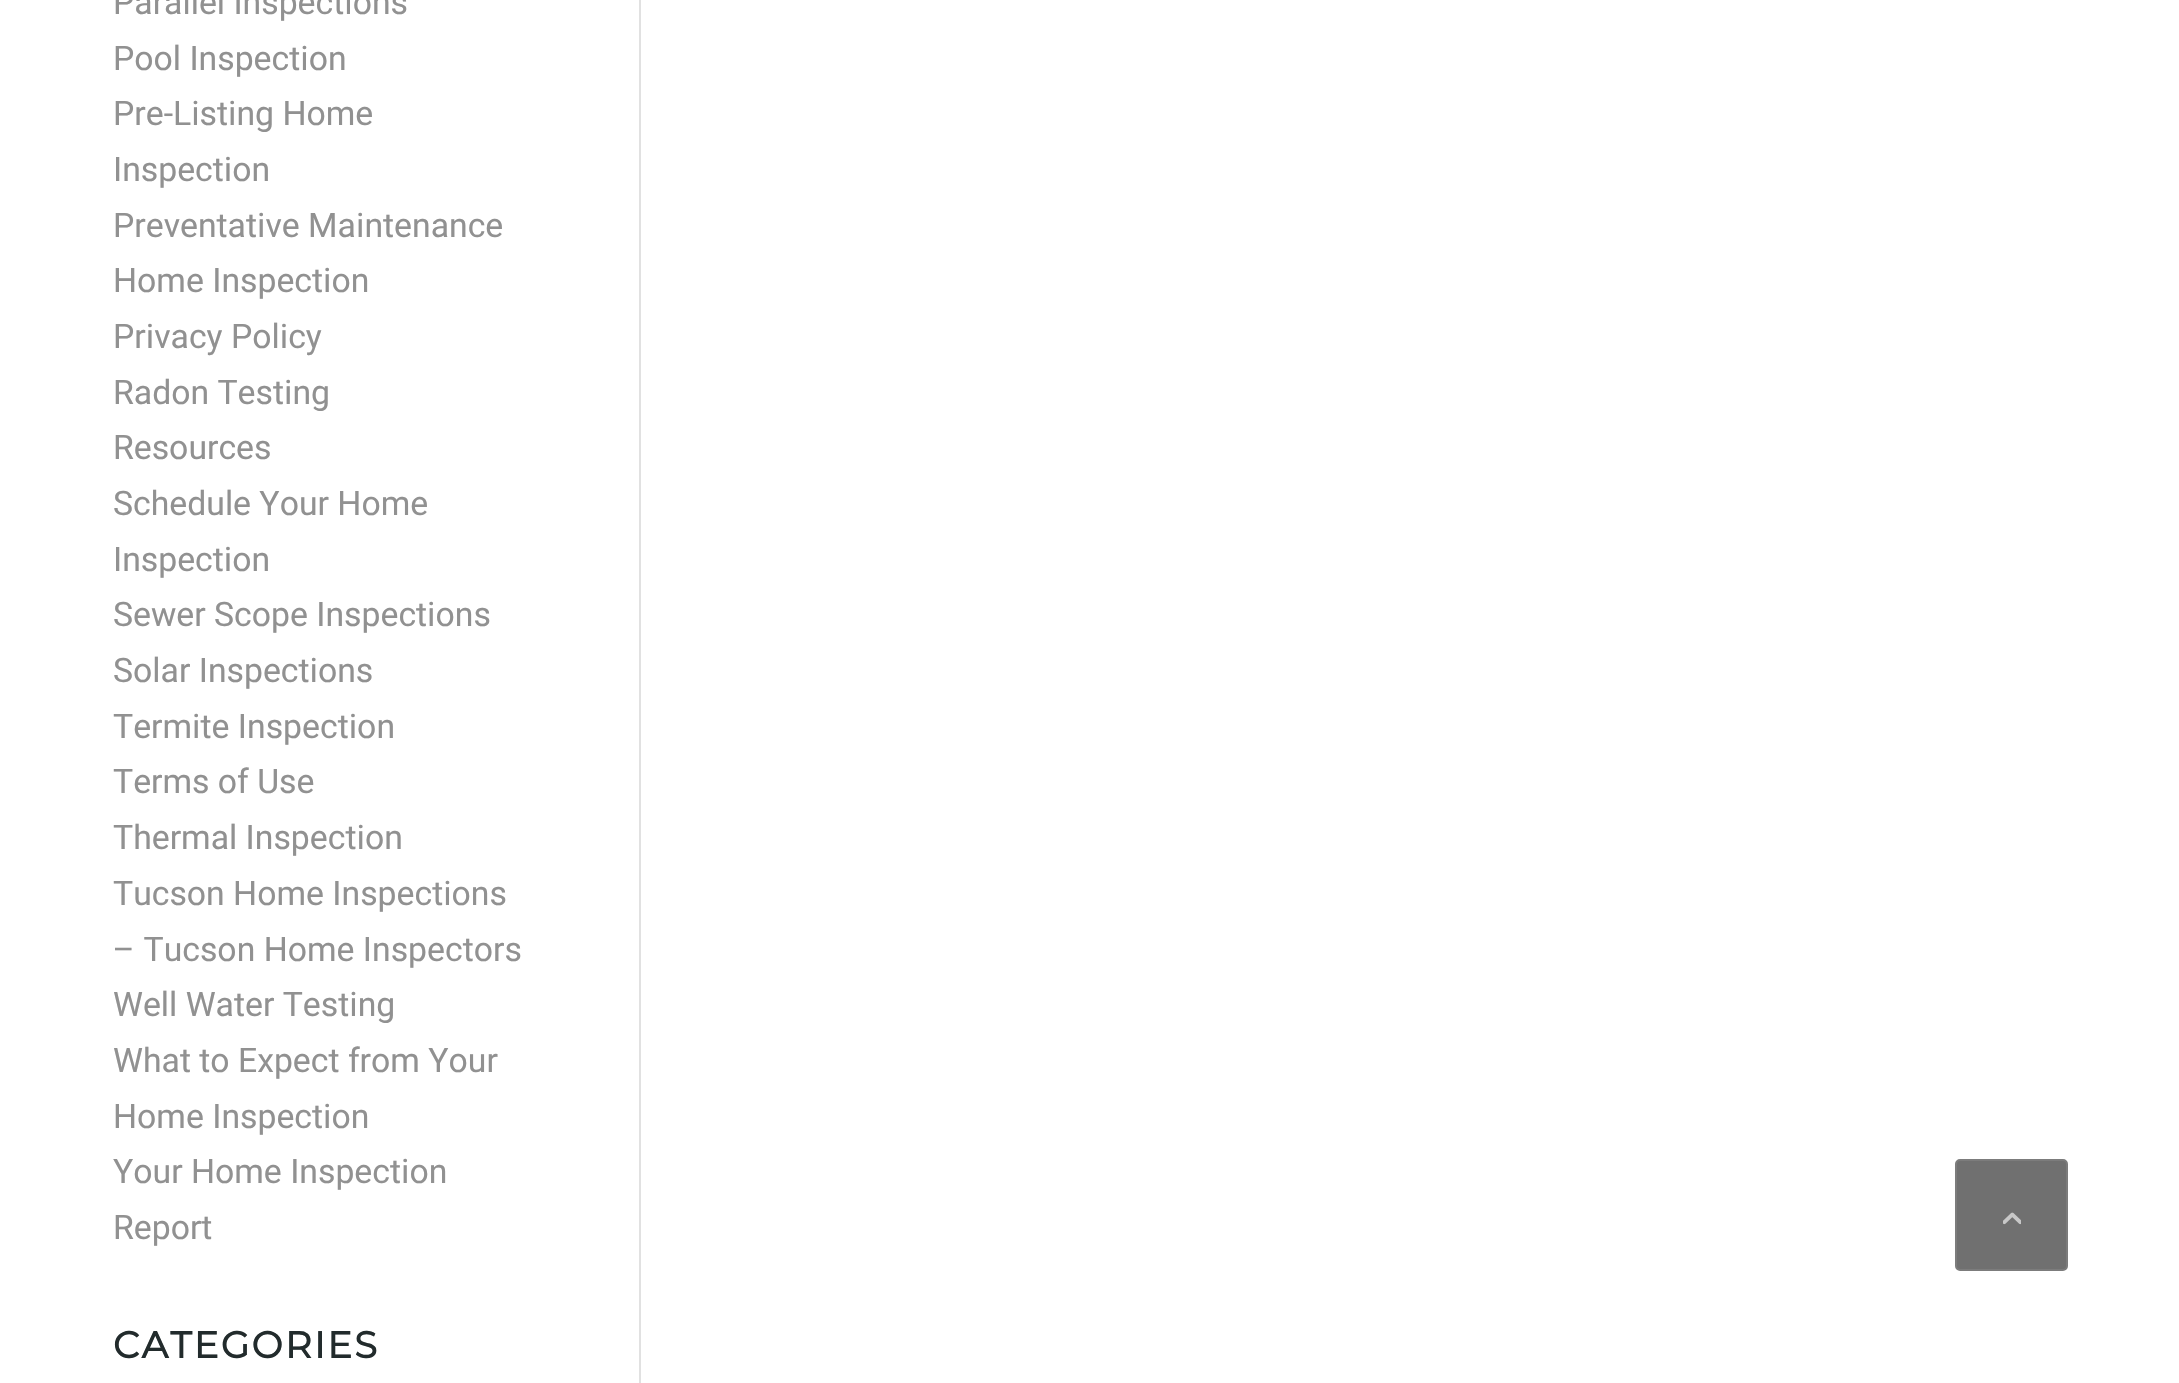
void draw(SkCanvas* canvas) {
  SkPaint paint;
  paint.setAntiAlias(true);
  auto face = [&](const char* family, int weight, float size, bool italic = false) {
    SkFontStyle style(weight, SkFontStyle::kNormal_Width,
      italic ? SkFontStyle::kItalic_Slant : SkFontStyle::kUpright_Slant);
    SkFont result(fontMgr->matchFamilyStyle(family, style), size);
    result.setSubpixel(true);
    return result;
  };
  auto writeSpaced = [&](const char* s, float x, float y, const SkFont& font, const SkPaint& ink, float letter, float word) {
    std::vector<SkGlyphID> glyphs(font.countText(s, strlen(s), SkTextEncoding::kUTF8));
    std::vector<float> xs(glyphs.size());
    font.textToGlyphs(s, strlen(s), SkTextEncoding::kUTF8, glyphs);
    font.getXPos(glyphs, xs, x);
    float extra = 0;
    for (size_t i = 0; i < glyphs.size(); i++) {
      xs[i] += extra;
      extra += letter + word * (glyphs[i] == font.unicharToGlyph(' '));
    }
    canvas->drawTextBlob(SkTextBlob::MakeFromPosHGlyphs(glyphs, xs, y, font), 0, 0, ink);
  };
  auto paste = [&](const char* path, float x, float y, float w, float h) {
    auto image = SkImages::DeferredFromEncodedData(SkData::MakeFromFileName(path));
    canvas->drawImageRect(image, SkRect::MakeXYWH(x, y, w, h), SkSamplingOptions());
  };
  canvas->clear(0xffffffff);
  paint.setColor(0xffe1e1e1);
  canvas->drawRect(SkRect::MakeXYWH(639, 0, 2, 1383), paint);
  paint.setColor(0xff707070);
  canvas->drawRoundRect(SkRect::MakeXYWH(1956, 1160, 111, 110), 4, 4, paint);
  paint.setStroke(true);
  paint.setStrokeWidth(2);
  paint.setColor(0xff7c7c7c);
  canvas->drawRoundRect(SkRect::MakeXYWH(1956, 1160, 111, 110), 4, 4, paint);
  paste("img/1.png", 2003, 1212, 18, 13);
  auto f0 = face("Heebo", 400, 33.75f);
  paint.setStroke(false);
  paint.setColor(0xff919191);
  {
    const struct { const char* s; float x, y; } items[] = {
      {"Parallel Inspections", 113, 14},
      {"Pool Inspection", 113, 70},
      {"Pre-Listing Home", 113, 125},
      {"Inspection", 113, 181},
      {"Preventative Maintenance", 113, 237},
      {"Home Inspection", 113, 292},
      {"Privacy Policy", 113, 348},
      {"Radon Testing", 113, 404},
      {"Resources", 113, 459},
      {"Schedule Your Home", 113, 515},
      {"Inspection", 113, 571},
      {"Sewer Scope Inspections", 113, 626},
      {"Solar Inspections", 113, 682},
      {"Termite Inspection", 113, 738},
      {"Terms of Use", 113, 793},
      {"Thermal Inspection", 113, 849},
      {"Tucson Home Inspections", 113, 905},
      {"– Tucson Home Inspectors", 113, 961},
      {"Well Water Testing", 113, 1016},
      {"What to Expect from Your", 113, 1072},
      {"Home Inspection", 113, 1128},
      {"Your Home Inspection", 113, 1183},
      {"Report", 113, 1239},
    };
    for (auto [s, x, y] : items) {
      canvas->drawString(s, x, y, f0, paint);
    }
  }
  auto f1 = face("Montserrat", 700, 37);
  paint.setColor(0xff222b2c);
  writeSpaced("CATEGORIES", 113, 1358, f1, paint, 2.25f, 0);
}
